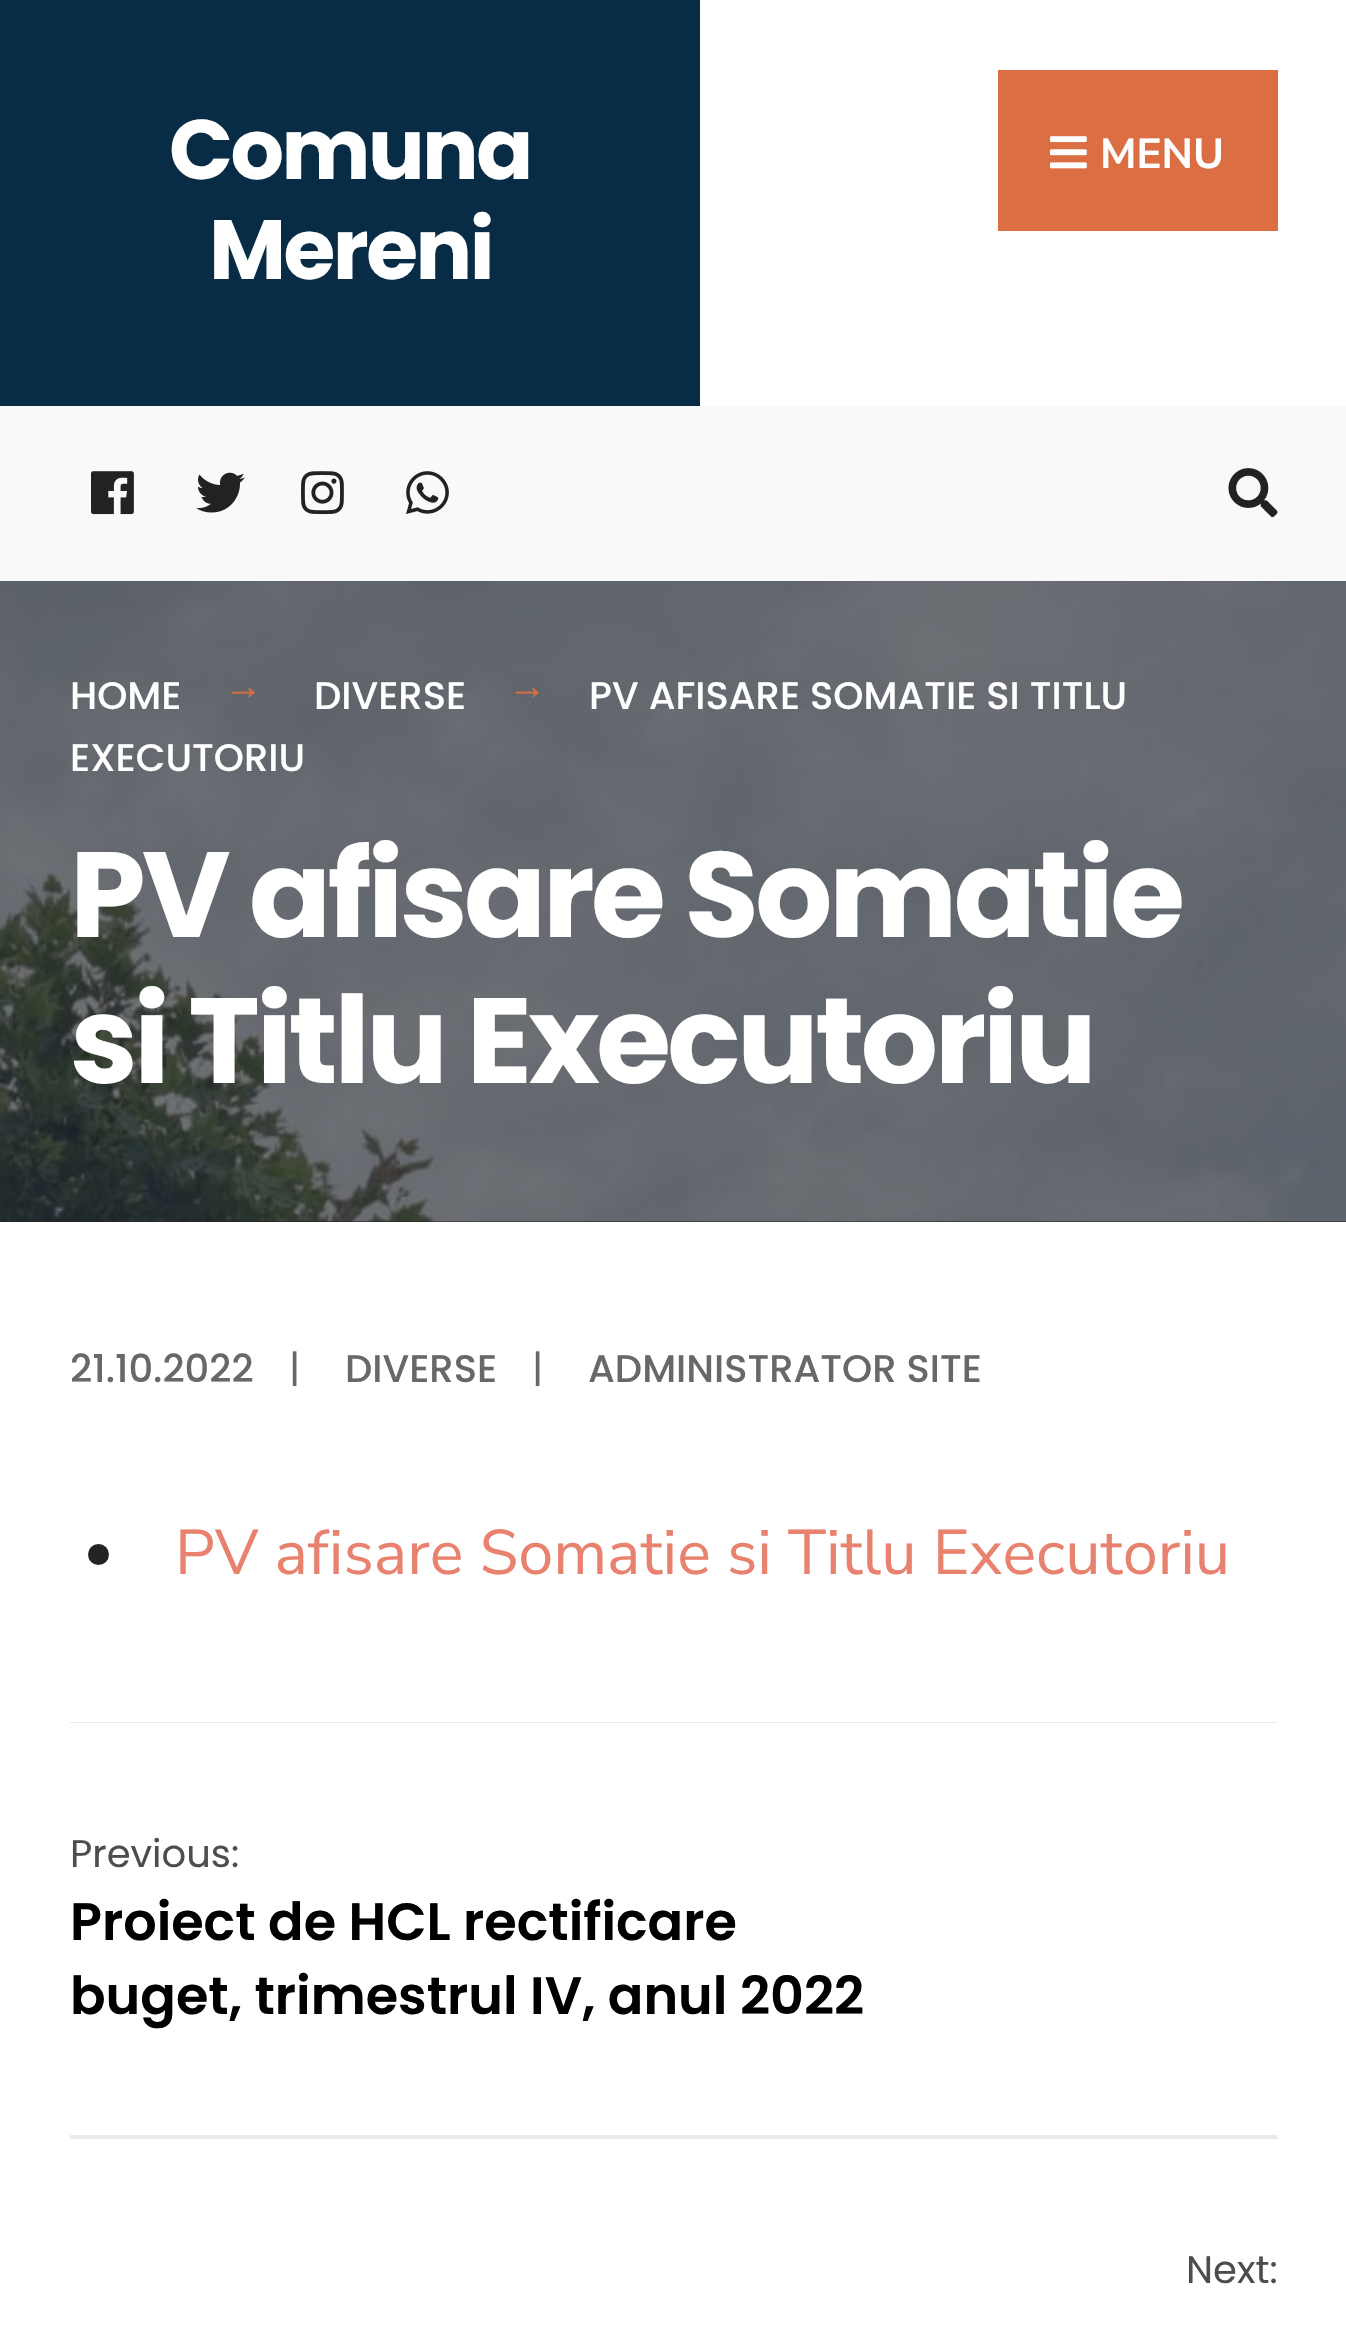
void draw(SkCanvas* canvas) {
  SkPaint paint;
  paint.setAntiAlias(true);
  auto face = [&](const char* family, int weight, float size, bool italic = false) {
    SkFontStyle style(weight, SkFontStyle::kNormal_Width,
      italic ? SkFontStyle::kItalic_Slant : SkFontStyle::kUpright_Slant);
    SkFont result(fontMgr->matchFamilyStyle(family, style), size);
    result.setSubpixel(true);
    return result;
  };
  auto writeSpaced = [&](const char* s, float x, float y, const SkFont& font, const SkPaint& ink, float letter, float word) {
    std::vector<SkGlyphID> glyphs(font.countText(s, strlen(s), SkTextEncoding::kUTF8));
    std::vector<float> xs(glyphs.size());
    font.textToGlyphs(s, strlen(s), SkTextEncoding::kUTF8, glyphs);
    font.getXPos(glyphs, xs, x);
    float extra = 0;
    for (size_t i = 0; i < glyphs.size(); i++) {
      xs[i] += extra;
      extra += letter + word * (glyphs[i] == font.unicharToGlyph(' '));
    }
    canvas->drawTextBlob(SkTextBlob::MakeFromPosHGlyphs(glyphs, xs, y, font), 0, 0, ink);
  };
  auto paste = [&](const char* path, float x, float y, float w, float h) {
    auto image = SkImages::DeferredFromEncodedData(SkData::MakeFromFileName(path));
    canvas->drawImageRect(image, SkRect::MakeXYWH(x, y, w, h), SkSamplingOptions());
  };
  canvas->clear(0xffffffff);
  paint.setColor(0xff082c45);
  canvas->drawRect(SkRect::MakeXYWH(0, 0, 700, 406), paint);
  paint.setColor(0xffdb6e43);
  canvas->drawRect(SkRect::MakeXYWH(998, 70, 280, 161), paint);
  paste("img/1.png", 1050, 136, 37, 33);
  paint.setColor(0xfff9f9f9);
  canvas->drawRect(SkRect::MakeXYWH(0, 406, 1346, 175), paint);
  paste("img/2.png", 91, 471, 43, 44);
  paste("img/3.png", 196, 472, 49, 41);
  paste("img/4.png", 301, 471, 43, 44);
  paste("img/5.png", 406, 471, 43, 43);
  paste("img/6.png", 1228, 468, 50, 50);
  paint.setColor(0xff1e1e1e);
  canvas->drawRect(SkRect::MakeXYWH(0, 581, 1346, 641), paint);
  paste("img/7.png", 0, 581, 1346, 641);
  paint.setColor(0xff232323);
  canvas->drawCircle(98.5f, 1554.5f, 10.5f, paint);
  paint.setColor(0xffeaeaea);
  canvas->drawRect(SkRect::MakeXYWH(70, 1722, 1208, 1), paint);
  canvas->drawRect(SkRect::MakeXYWH(70, 2135, 1208, 4), paint);
  auto f0 = face("Poppins", 700, 84);
  paint.setColor(0xffffffff);
  writeSpaced("Comuna", 169, 179, f0, paint, -2.5f, 0);
  writeSpaced("Mereni", 209, 279, f0, paint, -2.5f, 0);
  auto f1 = face("Nunito Sans", 700, 42);
  canvas->drawString("MENU", 1100, 168, f1, paint);
  auto f2 = face("Poppins", 500, 38.5f);
  canvas->drawString("HOME", 70, 709, f2, paint);
  auto f3 = face("Liberation Serif", 400, 38.5f);
  paint.setColor(0xffdb6e43);
  canvas->drawString("→", 224, 699, f3, paint);
  paint.setColor(0xffffffff);
  canvas->drawString("DIVERSE", 314, 709, f2, paint);
  paint.setColor(0xffdb6e43);
  canvas->drawString("→", 508, 699, f3, paint);
  paint.setColor(0xffffffff);
  canvas->drawString("PV AFISARE SOMATIE SI TITLU", 589, 709, f2, paint);
  canvas->drawString("EXECUTORIU", 70, 771, f2, paint);
  auto f4 = face("Poppins", 700, 121.25f);
  writeSpaced("PV afisare Somatie", 70, 937, f4, paint, -3.6f, 0);
  writeSpaced("si Titlu Executoriu", 70, 1083, f4, paint, -3.6f, 0);
  paint.setColor(0xff686868);
  canvas->drawString("21.10.2022", 70, 1382, f2, paint);
  auto f5 = face("Poppins", 400, 38.5f);
  canvas->drawString("|", 289, 1382, f5, paint);
  canvas->drawString("DIVERSE", 345, 1382, f2, paint);
  canvas->drawString("|", 532, 1382, f5, paint);
  canvas->drawString("ADMINISTRATOR SITE", 588, 1382, f2, paint);
  auto f6 = face("Nunito Sans", 400, 63);
  paint.setColor(0xffe8816e);
  canvas->drawString("PV afisare Somatie si Titlu Executoriu", 175, 1574, f6, paint);
  paint.setColor(0xff4d4d4d);
  canvas->drawString("Previous:", 70, 1867, f5, paint);
  auto f7 = face("Poppins", 600, 52.5f);
  paint.setColor(0xff000000);
  canvas->drawString("Proiect de HCL rectificare", 70, 1940, f7, paint);
  canvas->drawString("buget, trimestrul IV, anul 2022", 70, 2014, f7, paint);
  paint.setColor(0xff4d4d4d);
  canvas->drawString("Next:", 1186, 2283, f5, paint);
}
